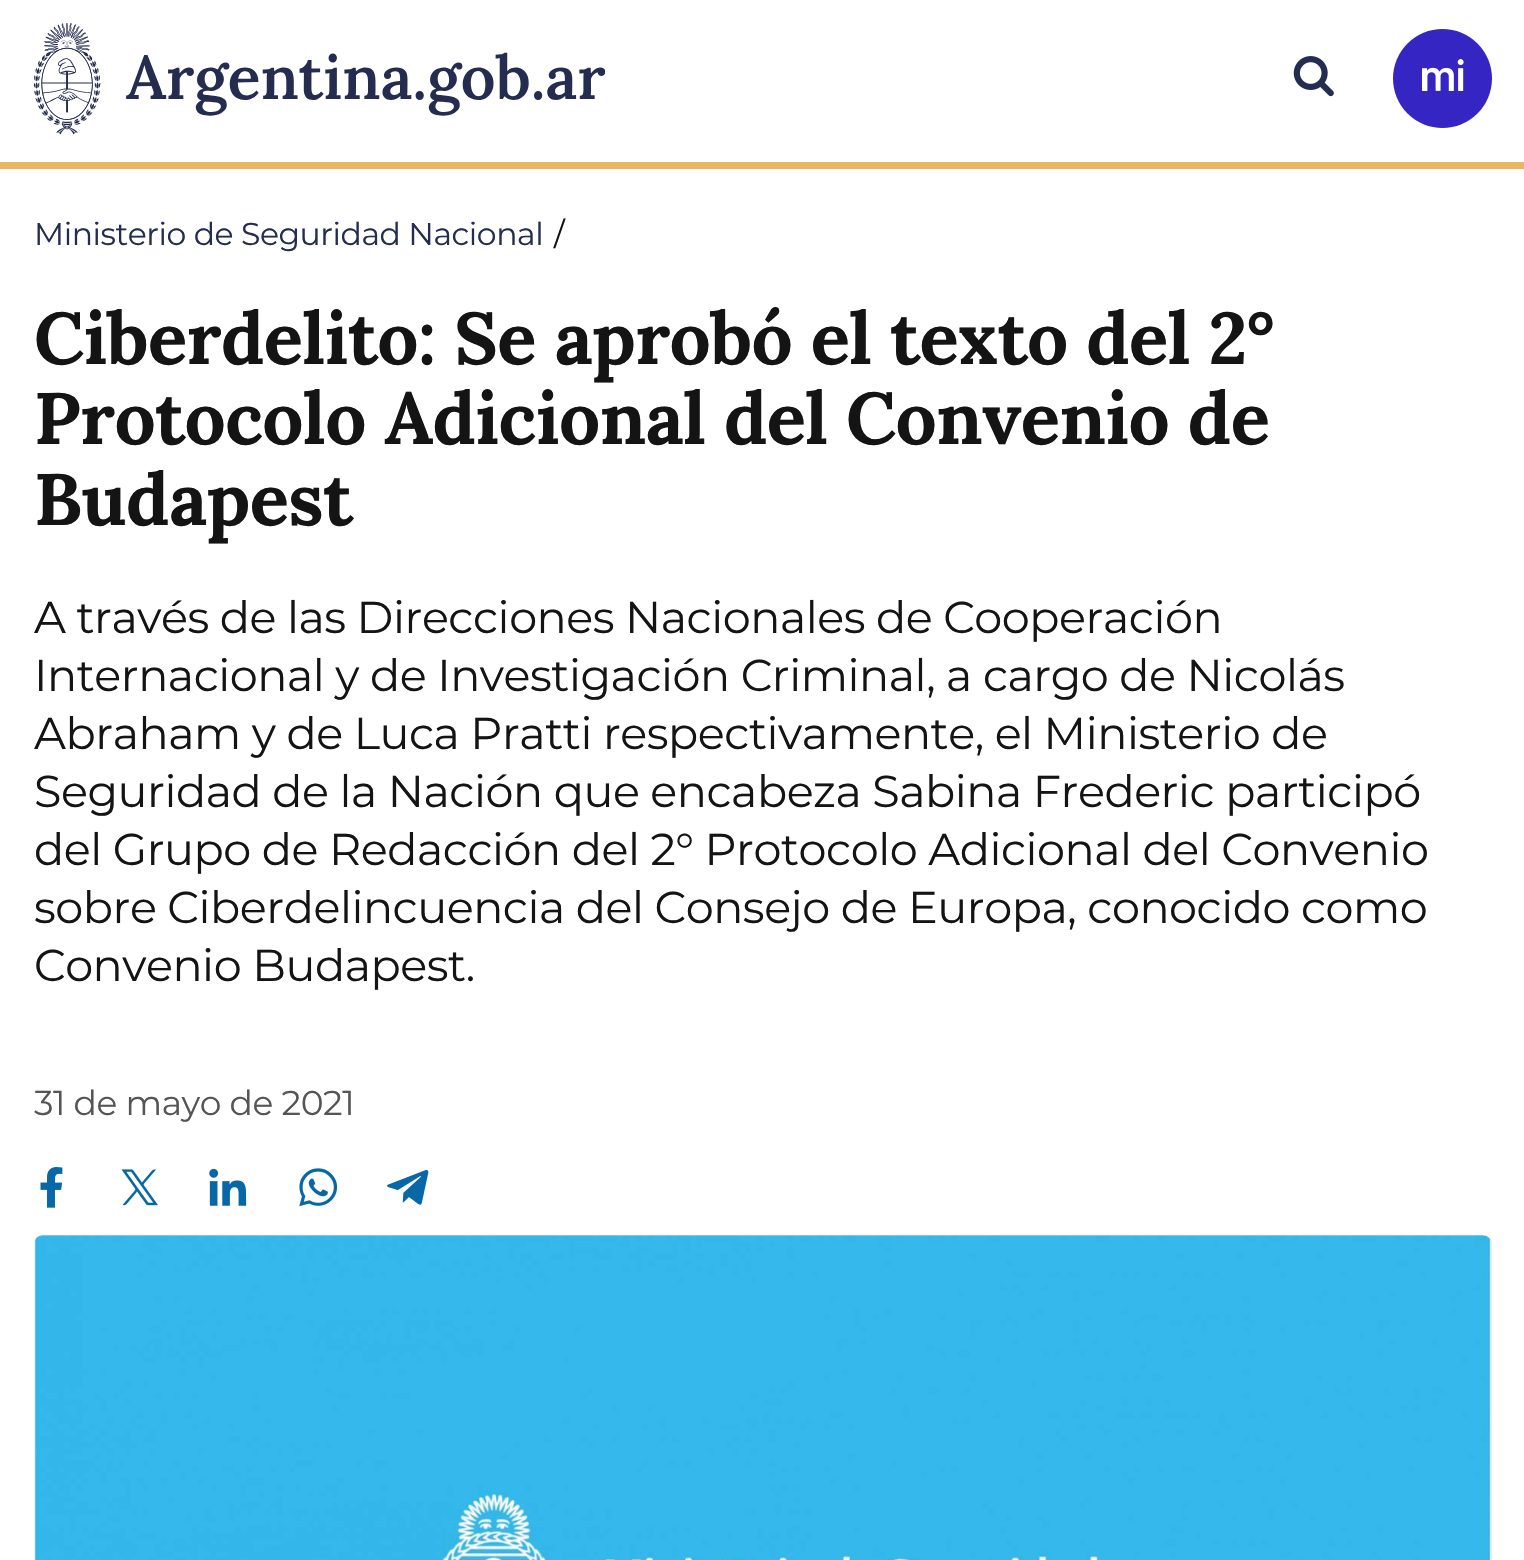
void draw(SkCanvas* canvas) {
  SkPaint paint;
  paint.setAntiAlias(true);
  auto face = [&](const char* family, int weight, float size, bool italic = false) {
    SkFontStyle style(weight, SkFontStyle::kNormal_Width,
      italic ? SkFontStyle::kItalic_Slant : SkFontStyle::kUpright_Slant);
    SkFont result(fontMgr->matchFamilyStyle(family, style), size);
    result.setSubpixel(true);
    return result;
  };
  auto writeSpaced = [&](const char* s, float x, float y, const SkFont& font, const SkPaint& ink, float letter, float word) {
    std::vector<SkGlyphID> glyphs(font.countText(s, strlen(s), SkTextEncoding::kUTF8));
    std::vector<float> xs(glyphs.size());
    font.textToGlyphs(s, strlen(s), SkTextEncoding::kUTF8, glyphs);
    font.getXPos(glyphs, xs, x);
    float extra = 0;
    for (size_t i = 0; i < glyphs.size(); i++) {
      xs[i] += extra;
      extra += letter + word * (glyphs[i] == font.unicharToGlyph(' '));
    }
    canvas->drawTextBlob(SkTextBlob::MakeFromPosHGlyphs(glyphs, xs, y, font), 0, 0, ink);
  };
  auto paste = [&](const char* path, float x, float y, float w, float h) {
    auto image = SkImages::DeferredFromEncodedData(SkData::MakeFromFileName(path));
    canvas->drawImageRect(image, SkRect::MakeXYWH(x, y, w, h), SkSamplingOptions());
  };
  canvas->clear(0xffffffff);
  paint.setColor(0xffe7ba61);
  canvas->drawRect(SkRect::MakeXYWH(0, 162, 1524, 7), paint);
  paste("img/1.png", 34, 23, 571, 112);
  paste("img/2.png", 1293, 56, 41, 41);
  paint.setColor(0xff3526c3);
  canvas->drawCircle(1442.5f, 78.5f, 49.5f, paint);
  paste("img/3.png", 1422, 59, 42, 32);
  paste("img/4.png", 40, 1167, 23, 41);
  paste("img/5.png", 121, 1169, 37, 37);
  paste("img/6.png", 209, 1168, 38, 38);
  paste("img/7.png", 299, 1168, 38, 39);
  paste("img/8.png", 387, 1170, 42, 35);
  paint.setColor(0xffdddddd);
  canvas->drawRoundRect(SkRect::MakeXYWH(34, 1235, 1458, 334), 9, 9, paint);
  paste("img/9.png", 34, 1235, 1458, 325);
  auto f0 = face("Montserrat", 400, 31.5f);
  paint.setColor(0xff232d4f);
  writeSpaced("Ministerio de Seguridad Nacional", 34, 245, f0, paint, -0.45f, 0);
  paint.setColor(0xff141414);
  writeSpaced("/", 554, 245, f0, paint, -0.45f, 0);
  auto f1 = face("Lora", 700, 72.9f);
  {
    const struct { const char* s; float x, y; } items[] = {
      {"Ciberdelito: Se aprobó el texto del 2°", 34, 364},
      {"Protocolo Adicional del Convenio de", 34, 444},
      {"Budapest", 34, 525},
    };
    for (auto [s, x, y] : items) {
      writeSpaced(s, x, y, f1, paint, -0.6f, 0);
    }
  }
  auto f2 = face("Montserrat", 400, 44.55f);
  {
    const struct { const char* s; float x, y; } items[] = {
      {"A través de las Direcciones Nacionales de Cooperación", 34, 633},
      {"Internacional y de Investigación Criminal, a cargo de Nicolás", 34, 691},
      {"Abraham y de Luca Pratti respectivamente, el Ministerio de", 34, 749},
      {"Seguridad de la Nación que encabeza Sabina Frederic participó", 34, 807},
      {"del Grupo de Redacción del 2° Protocolo Adicional del Convenio", 34, 865},
      {"sobre Ciberdelincuencia del Consejo de Europa, conocido como", 34, 923},
    };
    for (auto [s, x, y] : items) {
      writeSpaced(s, x, y, f2, paint, -0.45f, -0.25f);
    }
  }
  writeSpaced("Convenio Budapest.", 34, 981, f2, paint, -0.45f, 0);
  auto f3 = face("Montserrat", 400, 34.5f);
  paint.setColor(0xff555555);
  writeSpaced("31 de mayo de 2021", 34, 1115, f3, paint, -0.45f, 0);
}
